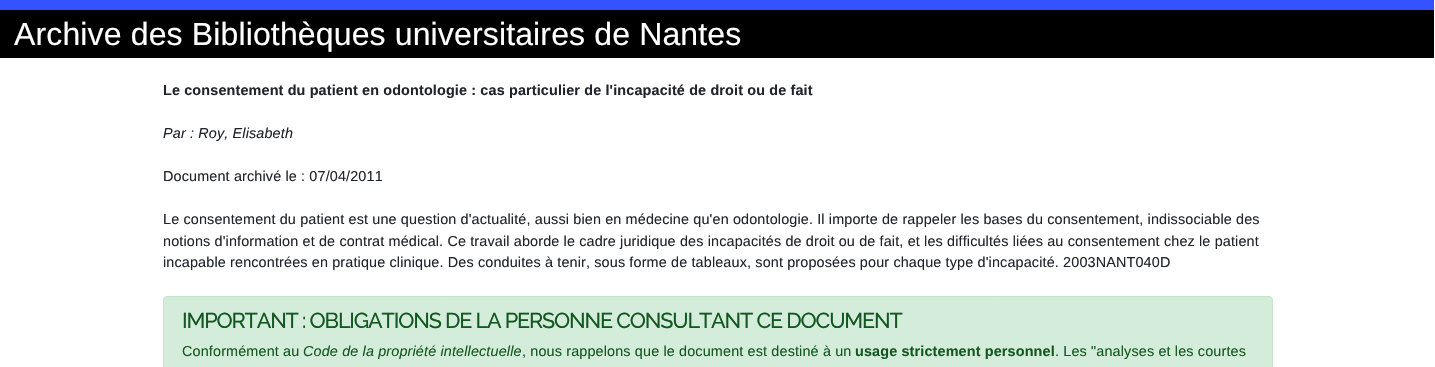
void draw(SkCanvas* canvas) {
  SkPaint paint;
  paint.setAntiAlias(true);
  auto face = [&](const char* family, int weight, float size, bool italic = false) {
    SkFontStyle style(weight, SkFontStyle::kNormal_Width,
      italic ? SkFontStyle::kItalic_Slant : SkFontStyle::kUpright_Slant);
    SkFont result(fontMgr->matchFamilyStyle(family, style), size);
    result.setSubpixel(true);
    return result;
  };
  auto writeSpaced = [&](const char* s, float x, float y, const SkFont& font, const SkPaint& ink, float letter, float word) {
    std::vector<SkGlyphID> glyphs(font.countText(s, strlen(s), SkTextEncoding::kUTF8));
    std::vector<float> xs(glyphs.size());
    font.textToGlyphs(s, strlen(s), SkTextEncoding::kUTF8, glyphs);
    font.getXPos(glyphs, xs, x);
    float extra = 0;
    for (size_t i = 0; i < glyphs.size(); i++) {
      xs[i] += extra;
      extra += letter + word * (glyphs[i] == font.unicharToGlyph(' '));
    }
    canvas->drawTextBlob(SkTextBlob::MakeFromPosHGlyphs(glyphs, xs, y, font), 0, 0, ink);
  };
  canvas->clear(0xffffffff);
  paint.setColor(0xff3452ff);
  canvas->drawRect(SkRect::MakeXYWH(0, 0, 1434, 10), paint);
  paint.setColor(0xff000000);
  canvas->drawRect(SkRect::MakeXYWH(0, 10, 1434, 48), paint);
  paint.setColor(0xffd4edda);
  canvas->drawRoundRect(SkRect::MakeXYWH(163.5f, 296.5f, 1109, 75), 3.5f, 3.5f, paint);
  paint.setStroke(true);
  paint.setStrokeWidth(1);
  paint.setColor(0xffc3e6cb);
  canvas->drawRoundRect(SkRect::MakeXYWH(163.5f, 296.5f, 1109, 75), 3.5f, 3.5f, paint);
  auto f0 = face("Liberation Sans", 400, 32);
  paint.setStroke(false);
  paint.setColor(0xffffffff);
  writeSpaced("Archive des Bibliothèques universitaires de Nantes", 14, 45, f0, paint, 0.14f, 0);
  auto f1 = face("Liberation Sans", 700, 14.4f);
  paint.setColor(0xff212529);
  writeSpaced("Le consentement du patient en odontologie : cas particulier de l'incapacité de droit ou de fait", 163, 95, f1, paint, 0.14f, 0);
  auto f2 = face("Liberation Sans", 400, 14.4f, true);
  writeSpaced("Par : Roy, Elisabeth", 163, 138, f2, paint, 0.14f, 0);
  auto f3 = face("Liberation Sans", 400, 14.4f);
  {
    const struct { const char* s; float x, y; } items[] = {
      {"Document archivé le : 07/04/2011", 163, 181},
      {"Le consentement du patient est une question d'actualité, aussi bien en médecine qu'en odontologie. Il importe de rappeler les bases du consentement, indissociable des", 163, 224},
      {"notions d'information et de contrat médical. Ce travail aborde le cadre juridique des incapacités de droit ou de fait, et les difficultés liées au consentement chez le patient", 163, 246},
      {"incapable rencontrées en pratique clinique. Des conduites à tenir, sous forme de tableaux, sont proposées pour chaque type d'incapacité. 2003NANT040D", 163, 267},
    };
    for (auto [s, x, y] : items) {
      writeSpaced(s, x, y, f3, paint, 0.14f, 0);
    }
  }
  auto f4 = face("Raleway", 500, 21.6f);
  paint.setColor(0xff155724);
  writeSpaced("IMPORTANT : OBLIGATIONS DE LA PERSONNE CONSULTANT CE DOCUMENT", 182, 328, f4, paint, -1.15f, 0);
  writeSpaced("Conformément au", 182, 356, f3, paint, 0.14f, 0);
  writeSpaced("Code de la propriété intellectuelle", 303, 356, f2, paint, 0.14f, 0);
  writeSpaced(", nous rappelons que le document est destiné à un", 522, 356, f3, paint, 0.14f, 0);
  writeSpaced("usage strictement personnel", 855, 356, f1, paint, 0.14f, 0);
  writeSpaced(". Les \"analyses et les courtes", 1055, 356, f3, paint, 0.14f, 0);
}
